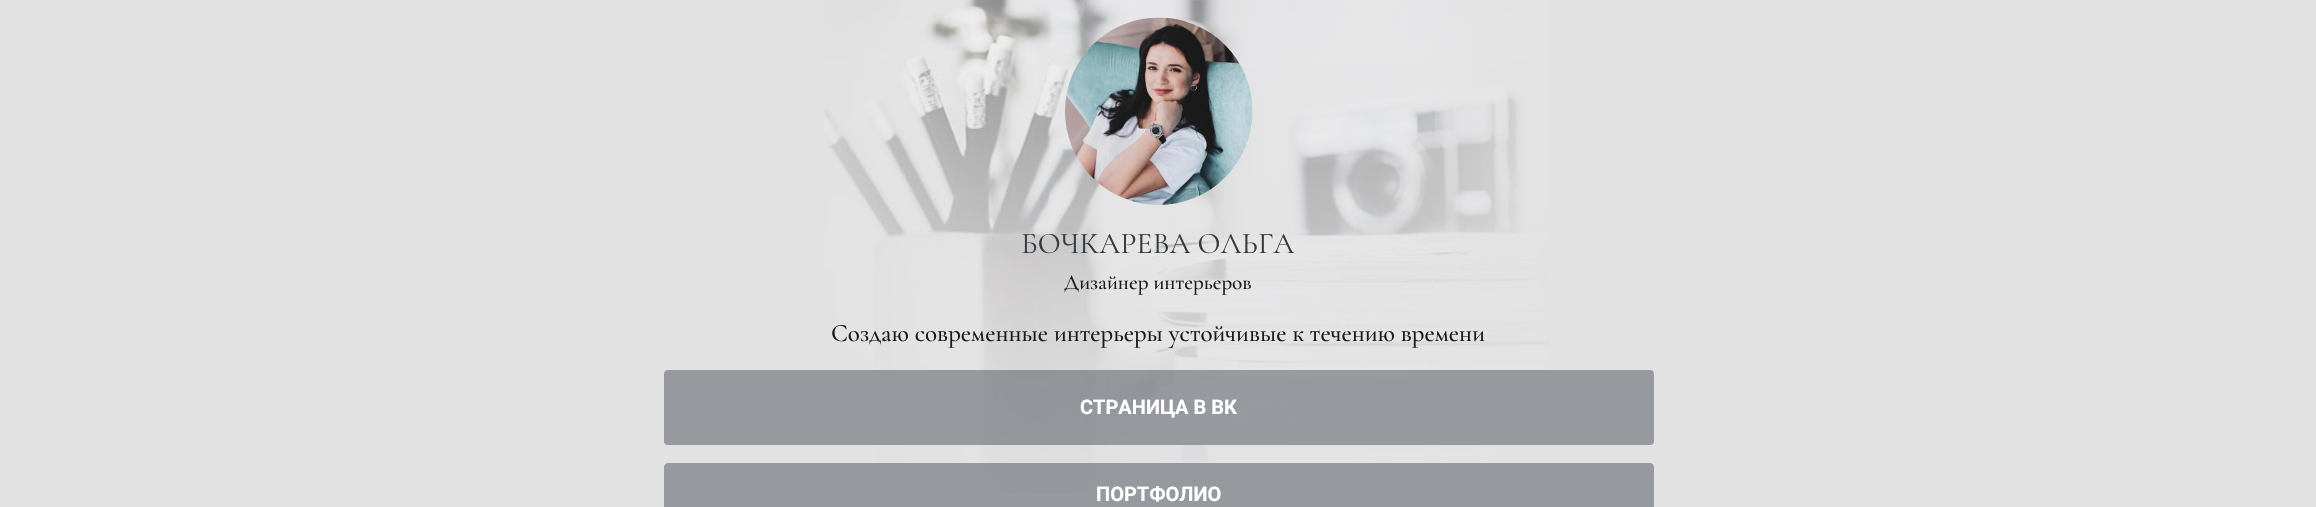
void draw(SkCanvas* canvas) {
  SkPaint paint;
  paint.setAntiAlias(true);
  auto face = [&](const char* family, int weight, float size, bool italic = false) {
    SkFontStyle style(weight, SkFontStyle::kNormal_Width,
      italic ? SkFontStyle::kItalic_Slant : SkFontStyle::kUpright_Slant);
    SkFont result(fontMgr->matchFamilyStyle(family, style), size);
    result.setSubpixel(true);
    return result;
  };
  auto paste = [&](const char* path, float x, float y, float w, float h) {
    auto image = SkImages::DeferredFromEncodedData(SkData::MakeFromFileName(path));
    canvas->drawImageRect(image, SkRect::MakeXYWH(x, y, w, h), SkSamplingOptions());
  };
  auto shape = [&](const char* data, bool evenOdd = false) {
    SkPath result = *SkParsePath::FromSVGString(data);
    if (evenOdd) result.setFillType(SkPathFillType::kEvenOdd);
    return result;
  };
  canvas->clear(0xffe2e2e2);
  paste("img/1.png", 824, 0, 725, 494);
  paste("img/2.png", 1065, 17, 188, 188);
  paint.setColor(0x80495057);
  canvas->drawRoundRect(SkRect::MakeXYWH(664, 370, 990, 75), 4, 4, paint);
  canvas->drawPath(shape("M668 463H1650C1652 463 1654 465 1654 467V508H664V467C664 465 666 463 668 463Z"), paint);
  auto f0 = face("Cormorant Garamond", 400, 30);
  paint.setColor(0xff343a40);
  canvas->drawString("БОЧКАРЕВА ОЛЬГА", 1021, 253, f0, paint);
  auto f1 = face("Cormorant Garamond", 500, 21.25f);
  paint.setColor(0xff1a1a1a);
  canvas->drawString("Дизайнер интерьеров", 1064, 289, f1, paint);
  auto f2 = face("Cormorant Garamond", 500, 25);
  canvas->drawString("Создаю современные интерьеры устойчивые к течению времени", 831, 341, f2, paint);
  auto f3 = face("Roboto", 700, 20);
  paint.setColor(0xffffffff);
  canvas->drawString("СТРАНИЦА В ВК", 1080, 414, f3, paint);
  canvas->drawString("ПОРТФОЛИО", 1096, 501, f3, paint);
}
